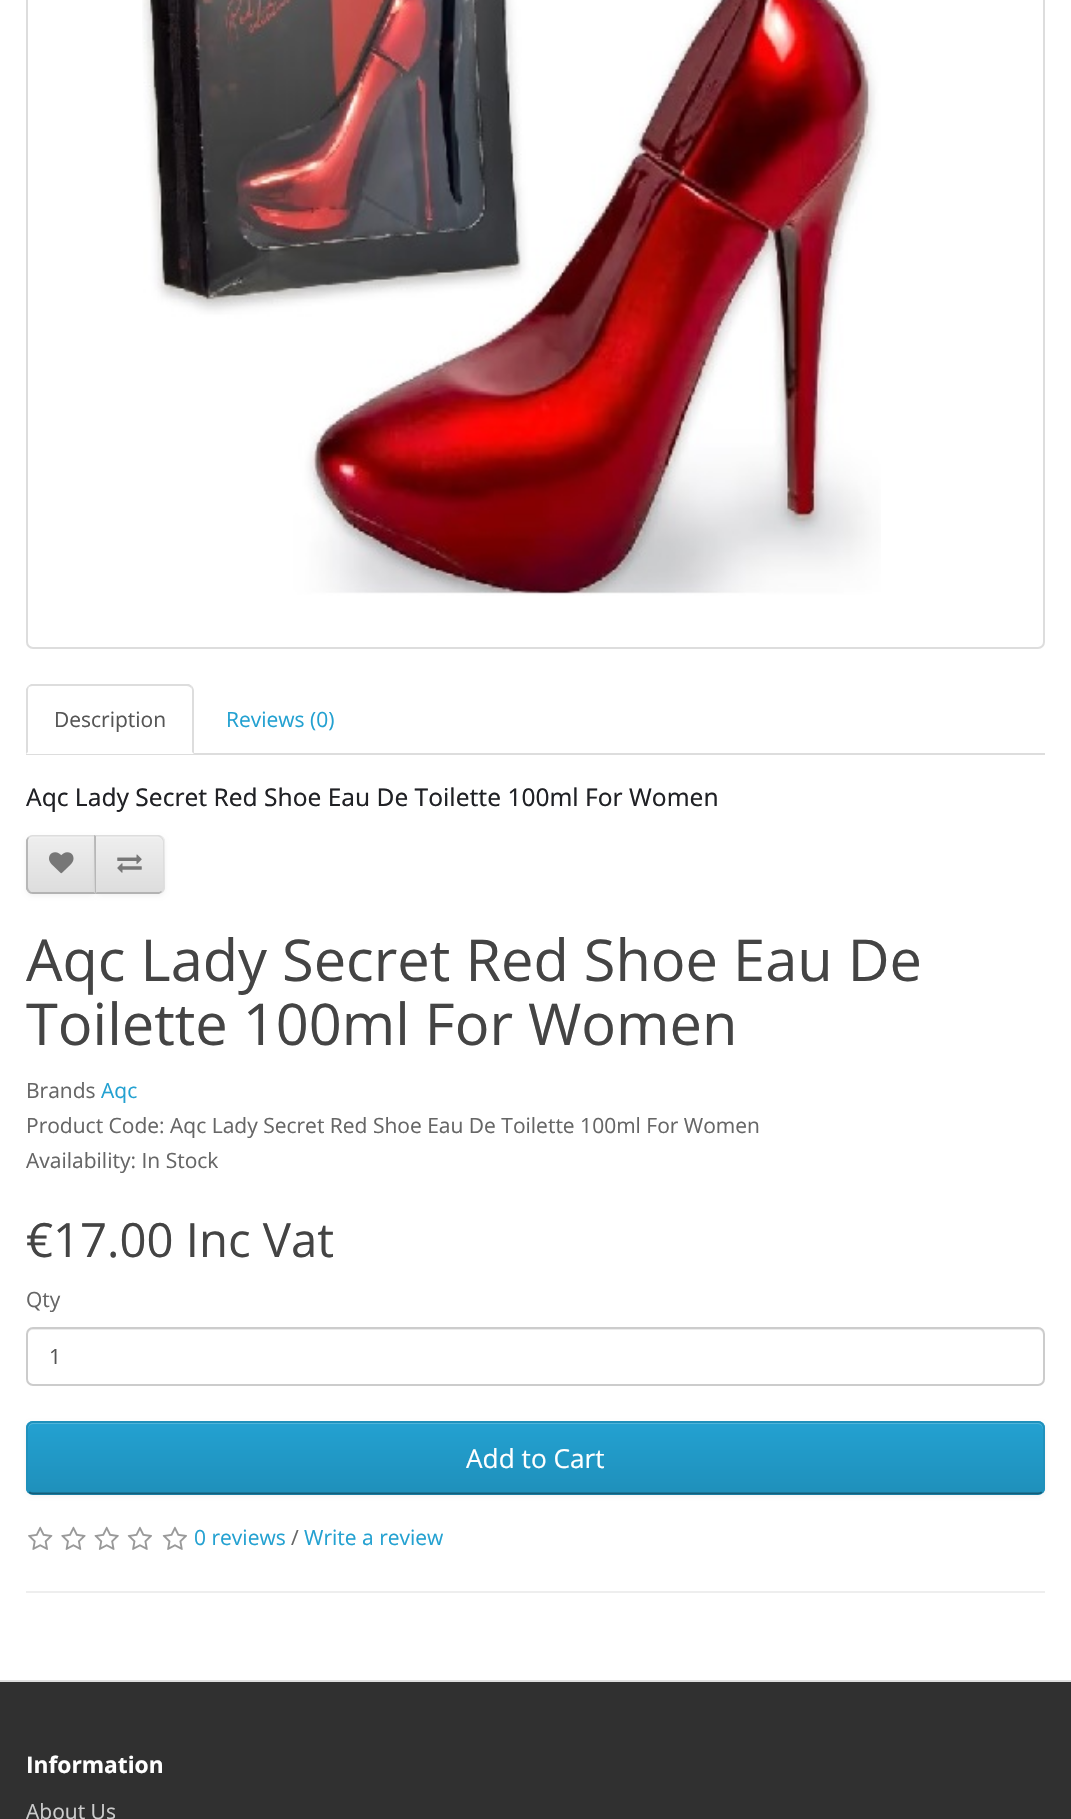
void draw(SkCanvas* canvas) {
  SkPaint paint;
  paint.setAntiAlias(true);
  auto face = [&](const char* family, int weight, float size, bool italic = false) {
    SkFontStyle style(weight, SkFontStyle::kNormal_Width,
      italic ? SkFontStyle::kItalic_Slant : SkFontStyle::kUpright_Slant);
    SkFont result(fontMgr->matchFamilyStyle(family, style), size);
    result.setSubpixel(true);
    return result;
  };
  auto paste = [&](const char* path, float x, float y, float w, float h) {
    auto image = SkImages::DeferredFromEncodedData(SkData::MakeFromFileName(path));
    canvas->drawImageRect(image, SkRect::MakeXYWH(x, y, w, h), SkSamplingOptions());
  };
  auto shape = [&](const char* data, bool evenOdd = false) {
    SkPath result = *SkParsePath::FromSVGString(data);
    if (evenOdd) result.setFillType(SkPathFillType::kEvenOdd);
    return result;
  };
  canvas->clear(0xffffffff);
  paint.setStroke(true);
  paint.setStrokeWidth(2);
  paint.setColor(0xffdddddd);
  canvas->drawRoundRect(SkRect::MakeXYWH(27, -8, 1017, 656), 6, 6, paint);
  paste("img/1.png", 142, 0, 739, 596);
  paint.setStroke(false);
  canvas->drawRect(SkRect::MakeXYWH(26, 753, 1019, 2), paint);
  paint.setColor(0xffffffff);
  canvas->drawPath(shape("M33 684H187C191 684 194 687 194 691V754H26V691C26 687 29 684 33 684Z"), paint);
  paint.setColor(0xffdddddd);
  canvas->drawPath(shape("M33 686C32 686 30 686 29 687L28 686L31 684H189L192 686L191 688C190 687 189 686 187 686Z"), paint);
  canvas->drawPath(shape("M192 686C193 687 194 689 194 691V754L192 752V691C192 690 192 688 191 688Z"), paint);
  canvas->drawPath(shape("M26 689L28 686L29 687C28 688 28 690 28 691V752L26 754Z"), paint);
  paint.setColor(0x0d000000);
  paint.setMaskFilter(SkMaskFilter::MakeBlur(kNormal_SkBlurStyle, 2));
  canvas->drawRoundRect(SkRect::MakeXYWH(26, 837, 70, 59), 7, 7, paint);
  paint.setMaskFilter(nullptr);
  paint.setColor(0xffe7e7e7);
  canvas->drawPath(shape("M33 835H96V894H33C29 894 26 891 26 887V842C26 838 29 835 33 835Z"), paint);
  canvas->save();
  canvas->clipPath(shape("M33 835H96V894H33C29 894 26 891 26 887V842C26 838 29 835 33 835Z"), true);
  {
    const SkColor colors[] = {0xffeeeeee, 0xffdddddd};
    const float stops[] = {0, 1};
    const SkPoint ends[] = {{61, 837}, {61, 893}};
    paint.setShader(SkGradientShader::MakeLinear(ends, colors, stops, 2, SkTileMode::kClamp));
    paint.setAlpha(255);
  }
  canvas->drawRect(SkRect::MakeXYWH(26, 837, 69, 56), paint);
  canvas->restore();
  paint.setShader(nullptr);
  paint.setColor(0x33ffffff);
  canvas->drawPath(shape("M33 838H94V893H95V837H33C30 837 28 839 28 842V844C28 841 30 838 33 838Z"), paint);
  paint.setColor(0xffdddddd);
  canvas->drawPath(shape("M33 835C31 835 29 836 28 837L29 838L32 836H94V837L96 835Z"), paint);
  canvas->drawPath(shape("M96 894V835L94 837V892Z"), paint);
  paint.setColor(0xffb3b3b3);
  canvas->drawPath(shape("M96 894L94 892H33C32 892 30 892 30 891L28 892C29 893 31 894 33 894Z"), paint);
  paint.setColor(0xffb7b7b7);
  canvas->drawPath(shape("M26 840L28 837L29 838C28 839 28 840 28 842V887C28 889 29 890 30 891L28 892L26 889Z"), paint);
  paste("img/2.png", 49, 852, 25, 22);
  paint.setColor(0x0d000000);
  paint.setMaskFilter(SkMaskFilter::MakeBlur(kNormal_SkBlurStyle, 2));
  canvas->drawRoundRect(SkRect::MakeXYWH(95, 837, 70, 59), 7, 7, paint);
  paint.setMaskFilter(nullptr);
  paint.setColor(0xffe7e7e7);
  canvas->drawPath(shape("M95 835H158C162 835 165 838 165 842V887C165 891 162 894 158 894H95Z"), paint);
  canvas->save();
  canvas->clipPath(shape("M95 835H158C162 835 165 838 165 842V887C165 891 162 894 158 894H95Z"), true);
  {
    const SkColor colors[] = {0xffeeeeee, 0xffdddddd};
    const float stops[] = {0, 1};
    const SkPoint ends[] = {{130, 837}, {130, 893}};
    paint.setShader(SkGradientShader::MakeLinear(ends, colors, stops, 2, SkTileMode::kClamp));
    paint.setAlpha(255);
  }
  canvas->drawRect(SkRect::MakeXYWH(96, 837, 69, 56), paint);
  canvas->restore();
  paint.setShader(nullptr);
  paint.setColor(0xfff1f1f1);
  canvas->drawPath(shape("M96 838H158C160 838 163 841 163 844V842C163 839 161 837 158 837H96Z"), paint);
  paint.setColor(0xffdddddd);
  canvas->drawPath(shape("M96 836H158L161 838L162 837L159 835H95Z"), paint);
  canvas->drawPath(shape("M162 837C163 838 164 840 164 842V887C164 889 163 891 162 892L161 891C162 890 163 889 163 887V842C163 841 162 839 161 838Z"), paint);
  paint.setColor(0xffb3b3b3);
  canvas->drawPath(shape("M162 892L159 894H95L97 892H158C159 892 160 892 161 891Z"), paint);
  paint.setColor(0xffb7b7b7);
  canvas->drawPath(shape("M94 835L96 836V892H97L95 894Z"), paint);
  paste("img/3.png", 117, 854, 25, 19);
  paint.setColor(0xffececec);
  canvas->drawPath(shape("M33 1330H1038C1041 1330 1043 1332 1043 1335V1333C1043 1330 1041 1328 1038 1328H33C30 1328 28 1330 28 1333V1335C28 1332 30 1330 33 1330Z"), paint);
  paint.setStroke(true);
  paint.setColor(0xffcccccc);
  canvas->drawRoundRect(SkRect::MakeXYWH(27, 1328, 1017, 57), 6, 6, paint);
  paint.setStroke(false);
  paint.setColor(0x0d000000);
  paint.setMaskFilter(SkMaskFilter::MakeBlur(kNormal_SkBlurStyle, 2));
  canvas->drawRoundRect(SkRect::MakeXYWH(26, 1423, 1019, 73), 7, 7, paint);
  paint.setMaskFilter(nullptr);
  paint.setColor(0xff229ac8);
  canvas->drawRoundRect(SkRect::MakeXYWH(26, 1421, 1019, 74), 7, 7, paint);
  canvas->save();
  canvas->clipPath(shape("M33 1421H1038C1042 1421 1045 1424 1045 1428V1488C1045 1492 1042 1495 1038 1495H33C29 1495 26 1492 26 1488V1428C26 1424 29 1421 33 1421Z"), true);
  {
    const SkColor colors[] = {0xff23a1d1, 0xff1f90bb};
    const float stops[] = {0, 1};
    const SkPoint ends[] = {{536, 1423}, {536, 1493}};
    paint.setShader(SkGradientShader::MakeLinear(ends, colors, stops, 2, SkTileMode::kClamp));
    paint.setAlpha(255);
  }
  canvas->drawRect(SkRect::MakeXYWH(26, 1423, 1019, 70), paint);
  canvas->restore();
  paint.setShader(nullptr);
  paint.setColor(0xff4fb4da);
  canvas->drawPath(shape("M33 1424H1038C1041 1424 1043 1427 1043 1430V1428C1043 1425 1041 1423 1038 1423H33C30 1423 28 1425 28 1428V1430C28 1427 30 1424 33 1424Z"), paint);
  paint.setStroke(true);
  paint.setStrokeWidth(1.8f);
  paint.setColor(0xff145e7a);
  canvas->drawPath(shape("M1042 1492C1041 1493 1039.5 1493.5 1038 1493.5H33C31.5 1493.5 30 1493 29 1492"), paint);
  paint.setColor(0xff1f90bb);
  canvas->drawPath(shape("M29 1492C28 1490.5 27 1489 27 1487.5V1428C27 1426.5 28 1425 29 1423.5C30 1422.5 31.5 1422 33 1422H1038C1039.5 1422 1041 1422.5 1042 1423.5C1043 1425 1044 1426.5 1044 1428V1487.5C1044 1489 1043 1490.5 1042 1492"), paint);
  paste("img/4.png", 28, 1526, 25, 24);
  paste("img/5.png", 61, 1526, 25, 24);
  paste("img/6.png", 94, 1526, 25, 24);
  paste("img/7.png", 127, 1526, 25, 24);
  paste("img/7.png", 162, 1526, 25, 24);
  paint.setStroke(false);
  {
    const struct { float x, y, w, h; SkColor color; } items[] = {
      {26, 1591, 1019, 2, 0xffeeeeee},
      {0, 1682, 1071, 137, 0xff303030},
      {0, 1680, 1071, 2, 0xffdddddd},
    };
    for (auto [x, y, w, h, color] : items) {
      paint.setColor(color);
      canvas->drawRect(SkRect::MakeXYWH(x, y, w, h), paint);
    }
  }
  auto f0 = face("Open Sans", 400, 21);
  paint.setColor(0xff555555);
  canvas->drawString("Description", 54, 727, f0, paint);
  paint.setColor(0xff23a1d1);
  canvas->drawString("Reviews (0)", 226, 727, f0, paint);
  auto f1 = face("Noto Sans", 400, 24.5f);
  paint.setColor(0xff202125);
  canvas->drawString("Aqc Lady Secret Red Shoe Eau De Toilette 100ml For Women", 26, 806, f1, paint);
  auto f2 = face("Open Sans", 400, 57.75f);
  paint.setColor(0xff444444);
  canvas->drawString("Aqc Lady Secret Red Shoe Eau De", 26, 981, f2, paint);
  canvas->drawString("Toilette 100ml For Women", 26, 1045, f2, paint);
  paint.setColor(0xff666666);
  canvas->drawString("Brands", 26, 1098, f0, paint);
  paint.setColor(0xff23a1d1);
  canvas->drawString("Aqc", 101, 1098, f0, paint);
  paint.setColor(0xff666666);
  canvas->drawString("Product Code: Aqc Lady Secret Red Shoe Eau De Toilette 100ml For Women", 26, 1133, f0, paint);
  canvas->drawString("Availability: In Stock", 26, 1168, f0, paint);
  auto f3 = face("Open Sans", 400, 47.25f);
  paint.setColor(0xff444444);
  canvas->drawString("€17.00 Inc Vat", 26, 1257, f3, paint);
  paint.setColor(0xff666666);
  canvas->drawString("Qty", 26, 1307, f0, paint);
  paint.setColor(0xff555555);
  canvas->drawString("1", 49, 1364, f0, paint);
  auto f4 = face("Open Sans", 400, 26.25f);
  paint.setColor(0xffffffff);
  canvas->drawString("Add to Cart", 466, 1468, f4, paint);
  paint.setColor(0xff23a1d1);
  canvas->drawString("0 reviews", 194, 1545, f0, paint);
  paint.setColor(0xff666666);
  canvas->drawString("/", 291, 1545, f0, paint);
  paint.setColor(0xff23a1d1);
  canvas->drawString("Write a review", 304, 1545, f0, paint);
  auto f5 = face("Open Sans", 700, 22.75f);
  paint.setColor(0xffffffff);
  canvas->drawString("Information", 26, 1773, f5, paint);
  paint.setColor(0xffcccccc);
  canvas->drawString("About Us", 26, 1819, f0, paint);
}
